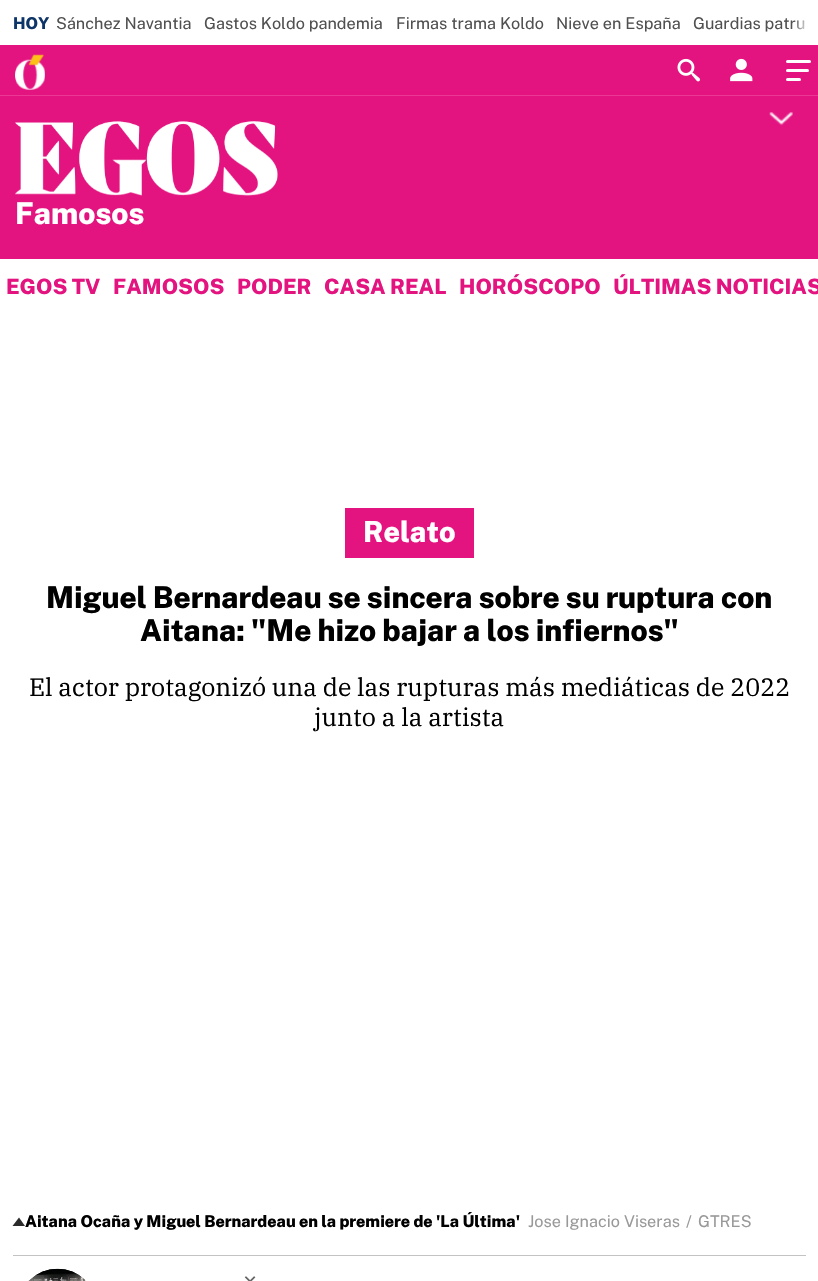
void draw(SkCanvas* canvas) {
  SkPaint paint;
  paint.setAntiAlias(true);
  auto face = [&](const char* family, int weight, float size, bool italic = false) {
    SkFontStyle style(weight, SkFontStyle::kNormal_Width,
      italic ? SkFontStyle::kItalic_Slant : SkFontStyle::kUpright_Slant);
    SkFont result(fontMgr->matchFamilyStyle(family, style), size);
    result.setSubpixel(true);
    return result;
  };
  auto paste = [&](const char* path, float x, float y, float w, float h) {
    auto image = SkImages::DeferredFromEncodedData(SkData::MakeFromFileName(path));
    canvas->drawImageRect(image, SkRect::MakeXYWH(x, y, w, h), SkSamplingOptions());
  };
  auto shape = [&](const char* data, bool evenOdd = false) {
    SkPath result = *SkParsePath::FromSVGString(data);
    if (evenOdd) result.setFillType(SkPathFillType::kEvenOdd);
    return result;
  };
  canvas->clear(0xffffffff);
  paint.setColor(0xffe3137f);
  canvas->drawRect(SkRect::MakeXYWH(0, 45, 818, 50), paint);
  paste("img/1.png", 15, 54, 30, 36);
  paste("img/2.png", 677, 58, 23, 24);
  paste("img/3.png", 730, 58, 23, 24);
  paint.setColor(0xffffffff);
  canvas->drawRoundRect(SkRect::MakeXYWH(786, 60, 25, 3), 1.5f, 1.5f, paint);
  canvas->drawRoundRect(SkRect::MakeXYWH(786, 69, 23, 3), 1.5f, 1.5f, paint);
  canvas->drawRoundRect(SkRect::MakeXYWH(786, 78, 15, 3), 1.5f, 1.5f, paint);
  paint.setColor(0xffe3137f);
  canvas->drawRect(SkRect::MakeXYWH(0, 96, 818, 163), paint);
  paint.setColor(0xffea3894);
  canvas->drawRect(SkRect::MakeXYWH(0, 95, 818, 1), paint);
  paste("img/4.png", 769, 112, 24, 14);
  paste("img/5.png", 15, 121, 263, 75);
  paint.setColor(0xffe3137f);
  canvas->drawRect(SkRect::MakeXYWH(345, 508, 129, 50), paint);
  paint.setColor(0xff2b2b2b);
  canvas->drawPath(shape("M25 1226H12.5L19 1217.5Z"), paint);
  paint.setColor(0xffc3c3c3);
  canvas->drawRect(SkRect::MakeXYWH(13, 1255, 793, 1), paint);
  paste("img/6.png", 28, 1268, 58, 13);
  paste("img/7.png", 28, 1268, 58, 13);
  paste("img/8.png", 244, 1276, 12, 5);
  auto f0 = face("Public Sans", 100, 16.25f);
  paint.setColor(0xff0d3567);
  canvas->drawString("HOY", 13, 29, f0, paint);
  auto f1 = face("Public Sans", 400, 16.25f);
  paint.setColor(0xff505050);
  {
    const struct { const char* s; float x, y; } items[] = {
      {"Sánchez Navantia", 56, 29},
      {"Gastos Koldo pandemia", 204, 29},
      {"Firmas trama Koldo", 396, 29},
      {"Nieve en España", 556, 29},
      {"Guardias patru", 693, 29},
    };
    for (auto [s, x, y] : items) {
      canvas->drawString(s, x, y, f1, paint);
    }
  }
  {
    const SkColor colors[] = {0x00ffffff, 0xffffffff};
    const float stops[] = {0.36f, 0.77f};
    const SkPoint ends[] = {{778, 14}, {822, 26}};
    paint.setShader(SkGradientShader::MakeLinear(ends, colors, stops, 2, SkTileMode::kClamp));
    paint.setAlpha(255);
  }
  canvas->drawRect(SkRect::MakeXYWH(791, 20, 14, 10), paint);
  auto f2 = face("Public Sans", 100, 30);
  paint.setShader(nullptr);
  paint.setColor(0xffffffff);
  canvas->drawString("Famosos", 15, 224, f2, paint);
  auto f3 = face("Public Sans", 100, 21.25f);
  paint.setColor(0xffe3137f);
  {
    const struct { const char* s; float x, y; } items[] = {
      {"EGOS TV", 6, 294},
      {"FAMOSOS", 113, 294},
      {"PODER", 237, 294},
      {"CASA REAL", 324, 294},
      {"HORÓSCOPO", 459, 294},
      {"ÚLTIMAS NOTICIAS", 613, 294},
    };
    for (auto [s, x, y] : items) {
      canvas->drawString(s, x, y, f3, paint);
    }
  }
  auto f4 = face("Public Sans", 100, 29);
  paint.setColor(0xffffffff);
  canvas->drawString("Relato", 363, 542, f4, paint);
  paint.setColor(0xff000000);
  canvas->drawString("Miguel Bernardeau se sincera sobre su ruptura con", 46, 608, f2, paint);
  canvas->drawString("Aitana: \"Me hizo bajar a los infiernos\"", 140, 641, f2, paint);
  auto f5 = face("IBM Plex Serif", 400, 25);
  canvas->drawString("El actor protagonizó una de las rupturas más mediáticas de 2022", 29, 696, f5, paint);
  canvas->drawString("junto a la artista", 314, 726, f5, paint);
  canvas->drawString("Aitana Ocaña y Miguel Bernardeau en la premiere de 'La Última'", 25, 1227, f0, paint);
  paint.setColor(0xff999999);
  {
    const struct { const char* s; float x, y; } items[] = {
      {"Jose Ignacio Viseras", 528, 1227},
      {"/", 686, 1227},
      {"GTRES", 698, 1227},
    };
    for (auto [s, x, y] : items) {
      canvas->drawString(s, x, y, f1, paint);
    }
  }
}
